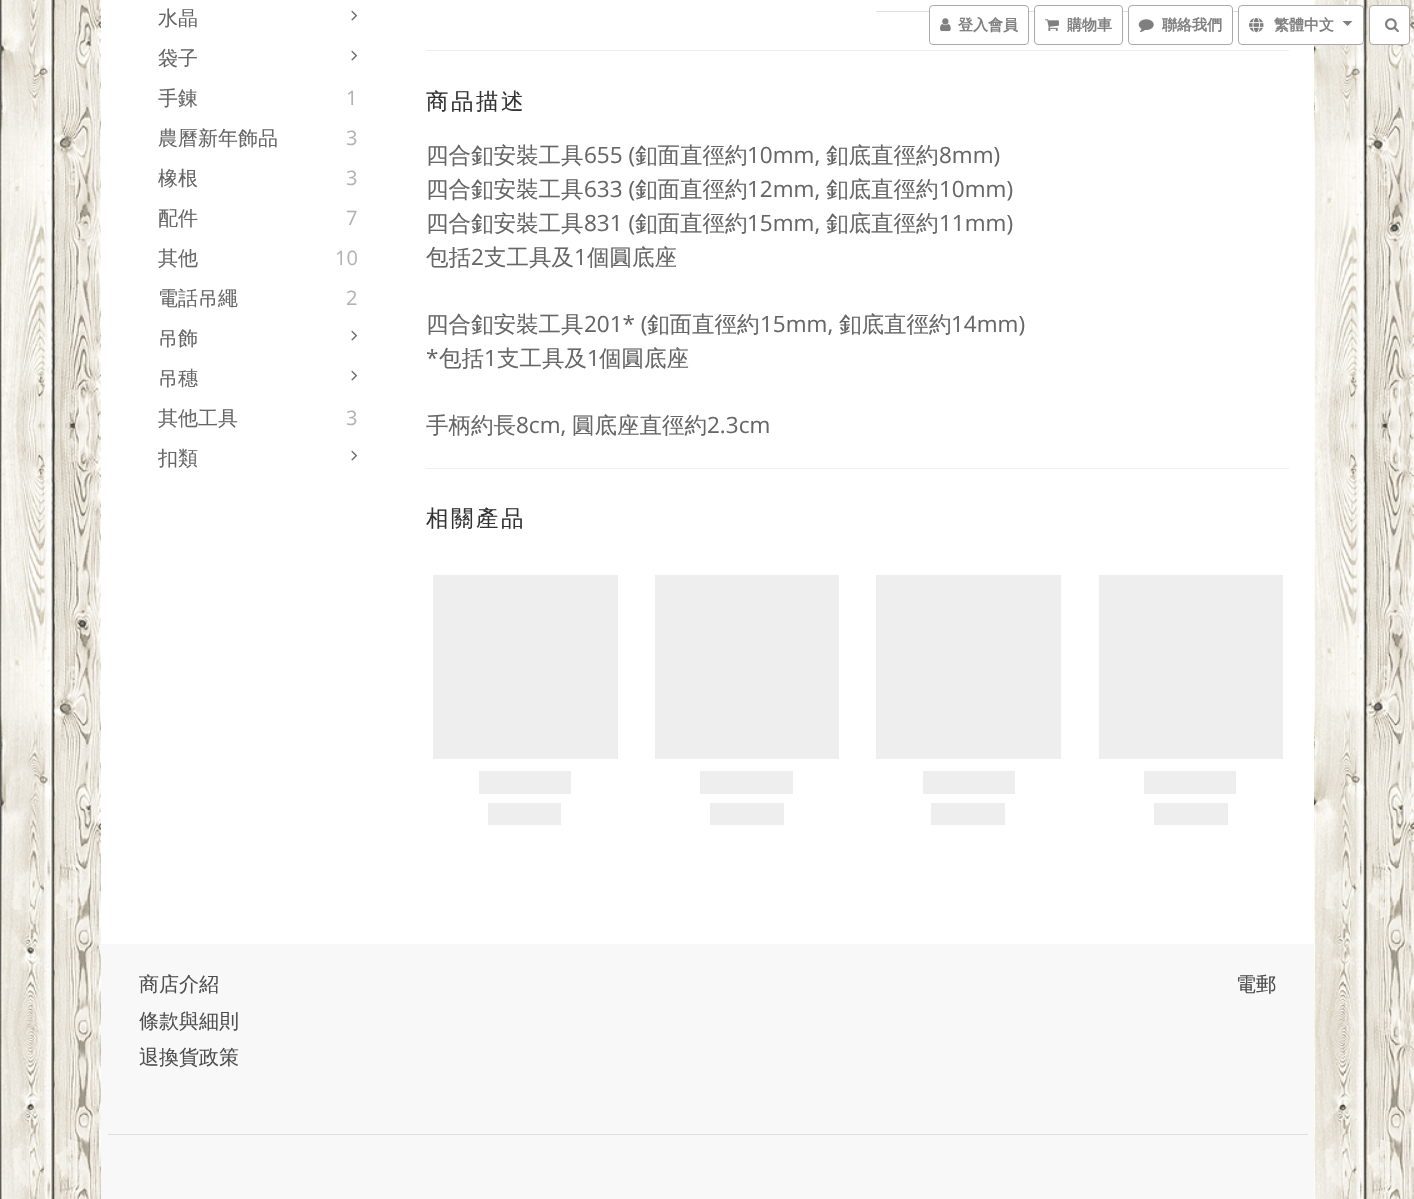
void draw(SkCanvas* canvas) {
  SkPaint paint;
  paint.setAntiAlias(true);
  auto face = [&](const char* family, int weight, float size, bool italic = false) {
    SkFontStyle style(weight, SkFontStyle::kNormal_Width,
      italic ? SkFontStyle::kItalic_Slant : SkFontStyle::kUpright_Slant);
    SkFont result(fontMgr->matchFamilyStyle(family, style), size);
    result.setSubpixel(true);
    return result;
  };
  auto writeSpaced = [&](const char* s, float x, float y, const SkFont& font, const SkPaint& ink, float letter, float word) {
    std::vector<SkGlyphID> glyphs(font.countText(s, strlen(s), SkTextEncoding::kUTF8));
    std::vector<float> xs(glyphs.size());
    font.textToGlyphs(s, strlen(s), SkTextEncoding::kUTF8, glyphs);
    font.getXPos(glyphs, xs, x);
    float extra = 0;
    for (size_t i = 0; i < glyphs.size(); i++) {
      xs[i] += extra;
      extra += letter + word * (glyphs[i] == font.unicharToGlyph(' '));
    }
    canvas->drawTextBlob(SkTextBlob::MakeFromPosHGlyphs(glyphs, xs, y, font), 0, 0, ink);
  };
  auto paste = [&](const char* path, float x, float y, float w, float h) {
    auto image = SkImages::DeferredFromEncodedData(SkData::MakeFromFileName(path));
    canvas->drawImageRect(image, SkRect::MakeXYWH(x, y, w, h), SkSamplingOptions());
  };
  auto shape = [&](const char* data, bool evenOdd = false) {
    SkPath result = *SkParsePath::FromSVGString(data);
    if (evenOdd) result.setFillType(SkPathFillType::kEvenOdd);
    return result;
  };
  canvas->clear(0xffffffff);
  paste("img/1.png", 0, 0, 1414, 1199);
  paint.setColor(0xffffffff);
  canvas->drawRect(SkRect::MakeXYWH(101, 0, 1213, 944), paint);
  paste("img/2.png", 351, 10, 6, 11);
  paste("img/2.png", 351, 50, 6, 11);
  paste("img/2.png", 351, 330, 6, 11);
  paste("img/2.png", 351, 370, 6, 11);
  paste("img/2.png", 351, 450, 6, 11);
  {
    const struct { float x, y, w, h; SkColor color; } items[] = {
      {876, 11, 362, 1, 0xffdddddd},
      {426, 50, 863, 1, 0xffeeeeee},
      {426, 468, 863, 1, 0xffeeeeee},
    };
    for (auto [x, y, w, h, color] : items) {
      paint.setColor(color);
      canvas->drawRect(SkRect::MakeXYWH(x, y, w, h), paint);
    }
  }
  {
    const SkColor colors[] = {0xffeeeeee, 0xffdfdfdf, 0xffeeeeee};
    const float stops[] = {0.1f, 0.3f, 0.5f};
    const SkPoint ends[] = {{-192, 667}, {1058, 667}};
    paint.setShader(SkGradientShader::MakeLinear(ends, colors, stops, 3, SkTileMode::kClamp));
    paint.setAlpha(255);
  }
  canvas->drawRect(SkRect::MakeXYWH(433, 575, 185, 184), paint);
  {
    const SkColor colors[] = {0xffeeeeee, 0xffdfdfdf, 0xffeeeeee};
    const float stops[] = {0.1f, 0.3f, 0.5f};
    const SkPoint ends[] = {{-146, 783}, {1104, 783}};
    paint.setShader(SkGradientShader::MakeLinear(ends, colors, stops, 3, SkTileMode::kClamp));
    paint.setAlpha(255);
  }
  canvas->drawRect(SkRect::MakeXYWH(479, 771, 92, 23), paint);
  {
    const SkColor colors[] = {0xffeeeeee, 0xffdfdfdf, 0xffeeeeee};
    const float stops[] = {0.1f, 0.3f, 0.5f};
    const SkPoint ends[] = {{-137, 814}, {1113, 814}};
    paint.setShader(SkGradientShader::MakeLinear(ends, colors, stops, 3, SkTileMode::kClamp));
    paint.setAlpha(255);
  }
  canvas->drawRect(SkRect::MakeXYWH(488, 803, 73, 22), paint);
  {
    const SkColor colors[] = {0xffeeeeee, 0xffdfdfdf, 0xffeeeeee};
    const float stops[] = {0.1f, 0.3f, 0.5f};
    const SkPoint ends[] = {{30, 667}, {1280, 667}};
    paint.setShader(SkGradientShader::MakeLinear(ends, colors, stops, 3, SkTileMode::kClamp));
    paint.setAlpha(255);
  }
  canvas->drawRect(SkRect::MakeXYWH(655, 575, 184, 184), paint);
  {
    const SkColor colors[] = {0xffeeeeee, 0xffdfdfdf, 0xffeeeeee};
    const float stops[] = {0.1f, 0.3f, 0.5f};
    const SkPoint ends[] = {{75, 783}, {1325, 783}};
    paint.setShader(SkGradientShader::MakeLinear(ends, colors, stops, 3, SkTileMode::kClamp));
    paint.setAlpha(255);
  }
  canvas->drawRect(SkRect::MakeXYWH(700, 771, 93, 23), paint);
  {
    const SkColor colors[] = {0xffeeeeee, 0xffdfdfdf, 0xffeeeeee};
    const float stops[] = {0.1f, 0.3f, 0.5f};
    const SkPoint ends[] = {{85, 814}, {1335, 814}};
    paint.setShader(SkGradientShader::MakeLinear(ends, colors, stops, 3, SkTileMode::kClamp));
    paint.setAlpha(255);
  }
  canvas->drawRect(SkRect::MakeXYWH(710, 803, 74, 22), paint);
  {
    const SkColor colors[] = {0xffeeeeee, 0xffdfdfdf, 0xffeeeeee};
    const float stops[] = {0.1f, 0.3f, 0.5f};
    const SkPoint ends[] = {{251, 667}, {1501, 667}};
    paint.setShader(SkGradientShader::MakeLinear(ends, colors, stops, 3, SkTileMode::kClamp));
    paint.setAlpha(255);
  }
  canvas->drawRect(SkRect::MakeXYWH(876, 575, 185, 184), paint);
  {
    const SkColor colors[] = {0xffeeeeee, 0xffdfdfdf, 0xffeeeeee};
    const float stops[] = {0.1f, 0.3f, 0.5f};
    const SkPoint ends[] = {{298, 783}, {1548, 783}};
    paint.setShader(SkGradientShader::MakeLinear(ends, colors, stops, 3, SkTileMode::kClamp));
    paint.setAlpha(255);
  }
  canvas->drawRect(SkRect::MakeXYWH(923, 771, 92, 23), paint);
  {
    const SkColor colors[] = {0xffeeeeee, 0xffdfdfdf, 0xffeeeeee};
    const float stops[] = {0.1f, 0.3f, 0.5f};
    const SkPoint ends[] = {{306, 814}, {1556, 814}};
    paint.setShader(SkGradientShader::MakeLinear(ends, colors, stops, 3, SkTileMode::kClamp));
    paint.setAlpha(255);
  }
  canvas->drawRect(SkRect::MakeXYWH(931, 803, 74, 22), paint);
  {
    const SkColor colors[] = {0xffeeeeee, 0xffdfdfdf, 0xffeeeeee};
    const float stops[] = {0.1f, 0.3f, 0.5f};
    const SkPoint ends[] = {{474, 667}, {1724, 667}};
    paint.setShader(SkGradientShader::MakeLinear(ends, colors, stops, 3, SkTileMode::kClamp));
    paint.setAlpha(255);
  }
  canvas->drawRect(SkRect::MakeXYWH(1099, 575, 184, 184), paint);
  {
    const SkColor colors[] = {0xffeeeeee, 0xffdfdfdf, 0xffeeeeee};
    const float stops[] = {0.1f, 0.3f, 0.5f};
    const SkPoint ends[] = {{519, 783}, {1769, 783}};
    paint.setShader(SkGradientShader::MakeLinear(ends, colors, stops, 3, SkTileMode::kClamp));
    paint.setAlpha(255);
  }
  canvas->drawRect(SkRect::MakeXYWH(1144, 771, 92, 23), paint);
  {
    const SkColor colors[] = {0xffeeeeee, 0xffdfdfdf, 0xffeeeeee};
    const float stops[] = {0.1f, 0.3f, 0.5f};
    const SkPoint ends[] = {{529, 814}, {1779, 814}};
    paint.setShader(SkGradientShader::MakeLinear(ends, colors, stops, 3, SkTileMode::kClamp));
    paint.setAlpha(255);
  }
  canvas->drawRect(SkRect::MakeXYWH(1154, 803, 74, 22), paint);
  paint.setShader(nullptr);
  paint.setColor(0xfff8f8f8);
  canvas->drawRect(SkRect::MakeXYWH(101, 944, 1213, 255), paint);
  paint.setColor(0xffe0e0e0);
  canvas->drawRect(SkRect::MakeXYWH(108, 1134, 1200, 1), paint);
  paint.setColor(0xffffffff);
  canvas->drawRoundRect(SkRect::MakeXYWH(929.5f, 5.5f, 99, 39), 3.5f, 3.5f, paint);
  paint.setStroke(true);
  paint.setStrokeWidth(1);
  paint.setColor(0xffaaaaaa);
  canvas->drawRoundRect(SkRect::MakeXYWH(929.5f, 5.5f, 99, 39), 3.5f, 3.5f, paint);
  paste("img/3.png", 940, 18, 11, 14);
  paint.setStroke(false);
  paint.setColor(0xffffffff);
  canvas->drawRoundRect(SkRect::MakeXYWH(1034.5f, 5.5f, 88, 39), 3.5f, 3.5f, paint);
  paint.setStroke(true);
  paint.setColor(0xffaaaaaa);
  canvas->drawRoundRect(SkRect::MakeXYWH(1034.5f, 5.5f, 88, 39), 3.5f, 3.5f, paint);
  paste("img/4.png", 1045, 19, 14, 12);
  paint.setStroke(false);
  paint.setColor(0xffffffff);
  canvas->drawRoundRect(SkRect::MakeXYWH(1128.5f, 5.5f, 104, 39), 3.5f, 3.5f, paint);
  paint.setStroke(true);
  paint.setColor(0xffaaaaaa);
  canvas->drawRoundRect(SkRect::MakeXYWH(1128.5f, 5.5f, 104, 39), 3.5f, 3.5f, paint);
  paste("img/5.png", 1138, 19, 16, 14);
  paint.setStroke(false);
  paint.setColor(0xffffffff);
  canvas->drawRoundRect(SkRect::MakeXYWH(1238.5f, 5.5f, 125, 39), 3.5f, 3.5f, paint);
  paint.setStroke(true);
  paint.setColor(0xffaaaaaa);
  canvas->drawRoundRect(SkRect::MakeXYWH(1238.5f, 5.5f, 125, 39), 3.5f, 3.5f, paint);
  paste("img/6.png", 1249, 18, 15, 15);
  paint.setStroke(false);
  paint.setColor(0xff808080);
  canvas->drawPath(shape("M1342.5 21H1352.5L1347.5 26Z"), paint);
  paint.setColor(0xffffffff);
  canvas->drawRoundRect(SkRect::MakeXYWH(1369.5f, 5.5f, 40, 39), 3.5f, 3.5f, paint);
  paint.setStroke(true);
  paint.setColor(0xffaaaaaa);
  canvas->drawRoundRect(SkRect::MakeXYWH(1369.5f, 5.5f, 40, 39), 3.5f, 3.5f, paint);
  paste("img/7.png", 1385, 18, 14, 15);
  auto f0 = face("WenQuanYi Zen Hei", 500, 20);
  paint.setStroke(false);
  paint.setColor(0xff666666);
  {
    const struct { const char* s; float x, y; } items[] = {
      {"水晶", 158, 25},
      {"袋子", 158, 65},
      {"手錬", 158, 105},
    };
    for (auto [s, x, y] : items) {
      canvas->drawString(s, x, y, f0, paint);
    }
  }
  auto f1 = face("Open Sans", 400, 20);
  paint.setColor(0xffb3b3b3);
  canvas->drawString("1", 346, 105, f1, paint);
  paint.setColor(0xff666666);
  canvas->drawString("農曆新年飾品", 158, 145, f0, paint);
  paint.setColor(0xffb3b3b3);
  canvas->drawString("3", 346, 145, f1, paint);
  paint.setColor(0xff666666);
  canvas->drawString("橡根", 158, 185, f0, paint);
  paint.setColor(0xffb3b3b3);
  canvas->drawString("3", 346, 185, f1, paint);
  paint.setColor(0xff666666);
  canvas->drawString("配件", 158, 225, f0, paint);
  paint.setColor(0xffb3b3b3);
  canvas->drawString("7", 346, 225, f1, paint);
  paint.setColor(0xff666666);
  canvas->drawString("其他", 158, 265, f0, paint);
  paint.setColor(0xffb3b3b3);
  canvas->drawString("10", 335, 265, f1, paint);
  paint.setColor(0xff666666);
  canvas->drawString("電話吊繩", 158, 305, f0, paint);
  paint.setColor(0xffb3b3b3);
  canvas->drawString("2", 346, 305, f1, paint);
  paint.setColor(0xff666666);
  {
    const struct { const char* s; float x, y; } items[] = {
      {"吊飾", 158, 345},
      {"吊穗", 158, 385},
      {"其他工具", 158, 425},
    };
    for (auto [s, x, y] : items) {
      canvas->drawString(s, x, y, f0, paint);
    }
  }
  paint.setColor(0xffb3b3b3);
  canvas->drawString("3", 346, 425, f1, paint);
  paint.setColor(0xff666666);
  canvas->drawString("扣類", 158, 465, f0, paint);
  auto f2 = face("WenQuanYi Zen Hei", 500, 22.5f);
  paint.setColor(0xff333333);
  writeSpaced("商品描述", 426, 109, f2, paint, 2.5f, 0);
  paint.setColor(0xff666666);
  canvas->drawString("四合釦安裝工具", 426, 163, f2, paint);
  auto f3 = face("Open Sans", 400, 22.5f);
  canvas->drawString("655 (", 584, 163, f3, paint);
  canvas->drawString("釦面直徑約", 635, 163, f2, paint);
  canvas->drawString("10mm,", 747, 163, f3, paint);
  canvas->drawString("釦底直徑約", 826, 163, f2, paint);
  canvas->drawString("8mm)", 939, 163, f3, paint);
  canvas->drawString("四合釦安裝工具", 426, 197, f2, paint);
  canvas->drawString("633 (", 584, 197, f3, paint);
  canvas->drawString("釦面直徑約", 635, 197, f2, paint);
  canvas->drawString("12mm,", 747, 197, f3, paint);
  canvas->drawString("釦底直徑約", 826, 197, f2, paint);
  canvas->drawString("10mm)", 939, 197, f3, paint);
  canvas->drawString("四合釦安裝工具", 426, 231, f2, paint);
  canvas->drawString("831 (", 584, 231, f3, paint);
  canvas->drawString("釦面直徑約", 635, 231, f2, paint);
  canvas->drawString("15mm,", 747, 231, f3, paint);
  canvas->drawString("釦底直徑約", 826, 231, f2, paint);
  canvas->drawString("11mm)", 939, 231, f3, paint);
  canvas->drawString("包括", 426, 265, f2, paint);
  canvas->drawString("2", 471, 265, f3, paint);
  canvas->drawString("支工具及", 484, 265, f2, paint);
  canvas->drawString("1", 574, 265, f3, paint);
  canvas->drawString("個圓底座", 587, 265, f2, paint);
  canvas->drawString("四合釦安裝工具", 426, 332, f2, paint);
  canvas->drawString("201* (", 584, 332, f3, paint);
  canvas->drawString("釦面直徑約", 647, 332, f2, paint);
  canvas->drawString("15mm,", 760, 332, f3, paint);
  canvas->drawString("釦底直徑約", 839, 332, f2, paint);
  canvas->drawString("14mm)", 951, 332, f3, paint);
  canvas->drawString("*", 426, 366, f3, paint);
  canvas->drawString("包括", 439, 366, f2, paint);
  canvas->drawString("1", 484, 366, f3, paint);
  canvas->drawString("支工具及", 497, 366, f2, paint);
  canvas->drawString("1", 587, 366, f3, paint);
  canvas->drawString("個圓底座", 599, 366, f2, paint);
  canvas->drawString("手柄約長", 426, 433, f2, paint);
  canvas->drawString("8cm,", 516, 433, f3, paint);
  canvas->drawString("圓底座直徑約", 572, 433, f2, paint);
  canvas->drawString("2.3cm", 707, 433, f3, paint);
  paint.setColor(0xff333333);
  writeSpaced("相關產品", 426, 526, f2, paint, 2.5f, 0);
  paint.setColor(0xff4e4e4e);
  {
    const struct { const char* s; float x, y; } items[] = {
      {"商店介紹", 139, 991},
      {"條款與細則", 139, 1028},
      {"退換貨政策", 139, 1064},
      {"電郵", 1236, 991},
    };
    for (auto [s, x, y] : items) {
      canvas->drawString(s, x, y, f0, paint);
    }
  }
  auto f4 = face("WenQuanYi Zen Hei", 700, 15);
  paint.setColor(0xff808080);
  {
    const struct { const char* s; float x, y; } items[] = {
      {"登入會員", 958, 30},
      {"購物車", 1067, 30},
      {"聯絡我們", 1162, 30},
      {"繁體中文", 1274, 30},
    };
    for (auto [s, x, y] : items) {
      canvas->drawString(s, x, y, f4, paint);
    }
  }
}
